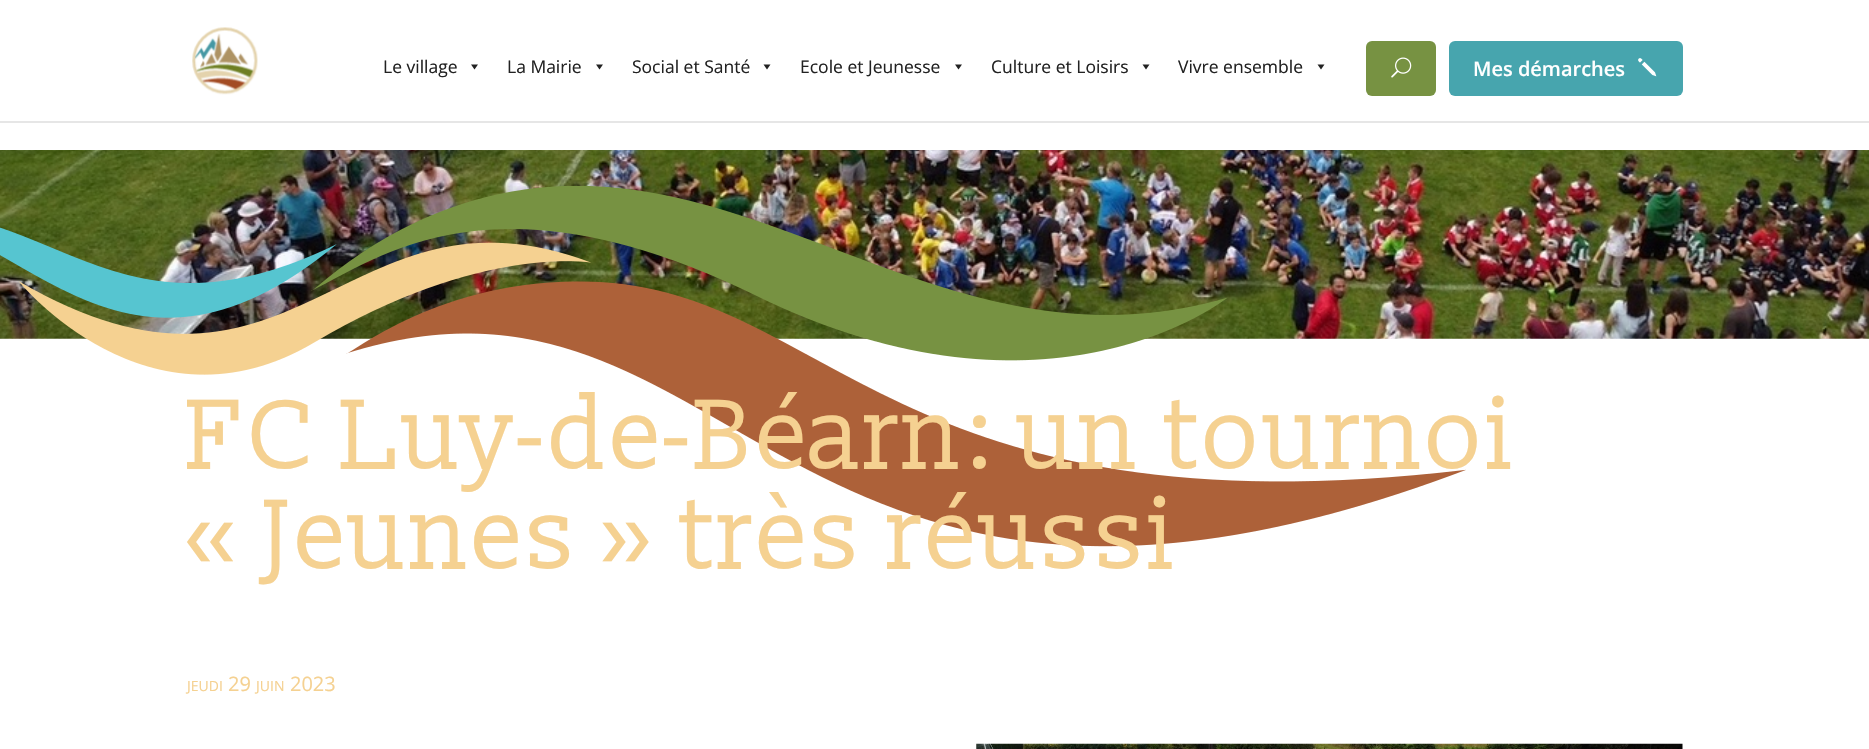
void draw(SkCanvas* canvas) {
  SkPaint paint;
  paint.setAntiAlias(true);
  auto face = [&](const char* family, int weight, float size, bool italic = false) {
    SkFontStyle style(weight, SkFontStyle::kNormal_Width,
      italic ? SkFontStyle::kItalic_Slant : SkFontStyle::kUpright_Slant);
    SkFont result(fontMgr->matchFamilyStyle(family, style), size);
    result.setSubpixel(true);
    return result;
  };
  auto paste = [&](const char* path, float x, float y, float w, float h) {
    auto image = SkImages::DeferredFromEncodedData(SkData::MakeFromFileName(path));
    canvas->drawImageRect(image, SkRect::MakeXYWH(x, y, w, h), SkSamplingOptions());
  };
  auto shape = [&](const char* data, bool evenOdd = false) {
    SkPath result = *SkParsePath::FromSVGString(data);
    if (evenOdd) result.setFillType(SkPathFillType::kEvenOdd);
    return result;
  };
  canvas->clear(0xffffffff);
  paint.setColor(0xffe6e6e6);
  canvas->drawRect(SkRect::MakeXYWH(0, 121, 1869, 2), paint);
  paste("img/1.png", 192, 27, 66, 68);
  paint.setColor(0xff222222);
  canvas->drawPath(shape("M478 64.5L474.5 69.5L471 64.5Z"), paint);
  canvas->drawPath(shape("M603 64.5L599.5 69.5L596 64.5Z"), paint);
  canvas->drawPath(shape("M770.5 64.5L767 69.5L763.5 64.5Z"), paint);
  canvas->drawPath(shape("M962 64.5L958.5 69.5L955 64.5Z"), paint);
  canvas->drawPath(shape("M1149.5 64.5L1146 69.5L1142.5 64.5Z"), paint);
  canvas->drawPath(shape("M1324.5 64.5L1321 69.5L1317.5 64.5Z"), paint);
  paint.setColor(0xff779242);
  canvas->drawRoundRect(SkRect::MakeXYWH(1366, 41, 70, 55), 6, 6, paint);
  paste("img/2.png", 1391, 57, 21, 21);
  paint.setColor(0xff47a5ae);
  canvas->drawRoundRect(SkRect::MakeXYWH(1449, 41, 234, 55), 6, 6, paint);
  paste("img/3.png", 1638, 58, 19, 19);
  paste("img/4.png", 0, 150, 1869, 189);
  paste("img/5.png", 0, 185, 1466, 362);
  paste("img/6.png", 976, 743, 707, 6);
  auto f0 = face("Open Sans", 400, 17.5f);
  paint.setColor(0xff222222);
  {
    const struct { const char* s; float x, y; } items[] = {
      {"Le village", 383, 73},
      {"La Mairie", 507, 73},
      {"Social et Santé", 632, 73},
      {"Ecole et Jeunesse", 800, 73},
      {"Culture et Loisirs", 991, 73},
      {"Vivre ensemble", 1178, 73},
    };
    for (auto [s, x, y] : items) {
      canvas->drawString(s, x, y, f0, paint);
    }
  }
  auto f1 = face("Open Sans", 600, 20);
  paint.setColor(0xffffffff);
  canvas->drawString("Mes démarches", 1473, 76, f1, paint);
  auto f2 = face("Slabo 13px", 400, 100);
  paint.setColor(0xfff5d191);
  canvas->drawString("FC Luy-de-Béarn: un tournoi", 187, 469, f2, paint);
  canvas->drawString("« Jeunes » très réussi", 187, 569, f2, paint);
  auto f3 = face("Open Sans", 400, 14);
  canvas->drawString("JEUDI", 187, 691, f3, paint);
  auto f4 = face("Open Sans", 400, 20);
  canvas->drawString("29", 228, 691, f4, paint);
  canvas->drawString("JUIN", 256, 691, f3, paint);
  canvas->drawString("2023", 290, 691, f4, paint);
}
